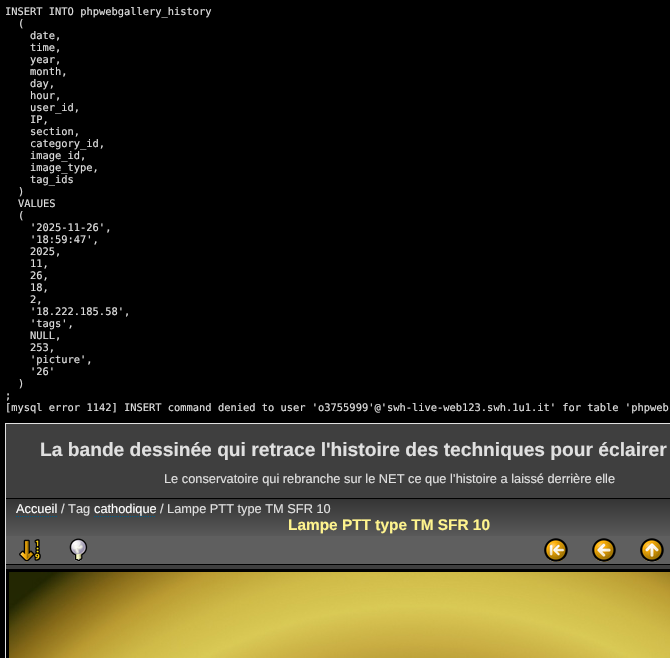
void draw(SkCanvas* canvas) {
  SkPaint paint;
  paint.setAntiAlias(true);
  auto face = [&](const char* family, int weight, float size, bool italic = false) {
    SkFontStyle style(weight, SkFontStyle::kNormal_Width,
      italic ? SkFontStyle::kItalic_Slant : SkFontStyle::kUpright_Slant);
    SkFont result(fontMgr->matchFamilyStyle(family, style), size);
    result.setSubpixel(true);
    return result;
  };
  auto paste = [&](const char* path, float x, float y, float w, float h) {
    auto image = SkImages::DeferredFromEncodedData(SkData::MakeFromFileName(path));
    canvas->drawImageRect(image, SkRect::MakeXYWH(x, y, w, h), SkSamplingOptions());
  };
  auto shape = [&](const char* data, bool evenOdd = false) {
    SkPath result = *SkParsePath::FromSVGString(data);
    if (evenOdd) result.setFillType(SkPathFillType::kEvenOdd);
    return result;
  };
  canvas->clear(0xff000000);
  paint.setColor(0xff3f3f3f);
  canvas->drawRect(SkRect::MakeXYWH(6, 424, 664, 145), paint);
  paint.setStroke(true);
  paint.setStrokeWidth(1);
  paint.setColor(0xffe0e0e0);
  canvas->drawRect(SkRect::MakeXYWH(5.5f, 423.5f, 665, 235), paint);
  paste("img/1.png", 6, 499, 664, 37);
  paint.setStroke(false);
  paint.setColor(0xff000000);
  canvas->drawRect(SkRect::MakeXYWH(6, 498, 664, 1), paint);
  paint.setStroke(true);
  paint.setColor(0xff005e89);
  paint.setPathEffect(SkDashPathEffect::Make({{1, 1}}, 0));
  canvas->drawPath(shape("M16 516.5H57"), paint);
  paint.setPathEffect(nullptr);
  paint.setPathEffect(SkDashPathEffect::Make({{1, 1}}, 0));
  canvas->drawPath(shape("M94 516.5H156"), paint);
  paint.setPathEffect(nullptr);
  paint.setStroke(false);
  paint.setColor(0xff5f5f5f);
  canvas->drawRect(SkRect::MakeXYWH(6, 536, 664, 28), paint);
  paint.setColor(0xff000000);
  canvas->drawRect(SkRect::MakeXYWH(6, 564, 664, 1), paint);
  paste("img/2.png", 19, 539, 22, 23);
  paste("img/3.png", 69, 538, 19, 24);
  paste("img/4.png", 544, 538, 24, 24);
  paste("img/5.png", 592, 538, 24, 24);
  paste("img/6.png", 640, 538, 24, 24);
  paste("img/7.png", 9, 572, 661, 86);
  auto f0 = face("DejaVu Sans Mono", 400, 10.4f);
  paint.setColor(0xffe0e0e0);
  {
    const struct { const char* s; float x, y; } items[] = {
      {"INSERT INTO phpwebgallery_history", 5, 15},
      {"(", 18, 27},
      {"date,", 30, 39},
      {"time,", 30, 51},
      {"year,", 30, 63},
      {"month,", 30, 75},
      {"day,", 30, 87},
      {"hour,", 30, 99},
      {"user_id,", 30, 111},
      {"IP,", 30, 123},
      {"section,", 30, 135},
      {"category_id,", 30, 147},
      {"image_id,", 30, 159},
      {"image_type,", 30, 171},
      {"tag_ids", 30, 183},
      {")", 18, 195},
      {"VALUES", 18, 207},
      {"(", 18, 219},
      {"'2025-11-26',", 30, 231},
      {"'18:59:47',", 30, 243},
      {"2025,", 30, 255},
      {"11,", 30, 267},
      {"26,", 30, 279},
      {"18,", 30, 291},
      {"2,", 30, 303},
      {"'18.222.185.58',", 30, 315},
      {"'tags',", 30, 327},
      {"NULL,", 30, 339},
      {"253,", 30, 351},
      {"'picture',", 30, 363},
      {"'26'", 30, 375},
      {")", 18, 387},
      {";", 5, 399},
      {"[mysql error 1142] INSERT command denied to user 'o3755999'@'swh-live-web123.swh.1u1.it' for table 'phpweb", 5, 411},
    };
    for (auto [s, x, y] : items) {
      canvas->drawString(s, x, y, f0, paint);
    }
  }
  auto f1 = face("Liberation Sans", 700, 19.2f);
  canvas->drawString("La bande dessinée qui retrace l'histoire des techniques pour éclairer", 40, 456, f1, paint);
  auto f2 = face("Liberation Sans", 400, 12.8f);
  canvas->drawString("Le conservatoire qui rebranche sur le NET ce que l’histoire a laissé derrière elle", 164, 483, f2, paint);
  paint.setColor(0xffffffff);
  canvas->drawString("Accueil", 16, 513, f2, paint);
  paint.setColor(0xffe0e0e0);
  canvas->drawString("/ Tag", 61, 513, f2, paint);
  paint.setColor(0xffffffff);
  canvas->drawString("cathodique", 94, 513, f2, paint);
  paint.setColor(0xffe0e0e0);
  canvas->drawString("/ Lampe PTT type TM SFR 10", 160, 513, f2, paint);
  auto f3 = face("Liberation Sans", 700, 15.4f);
  paint.setColor(0xfffff48e);
  canvas->drawString("Lampe PTT type TM SFR 10", 288, 530, f3, paint);
}
